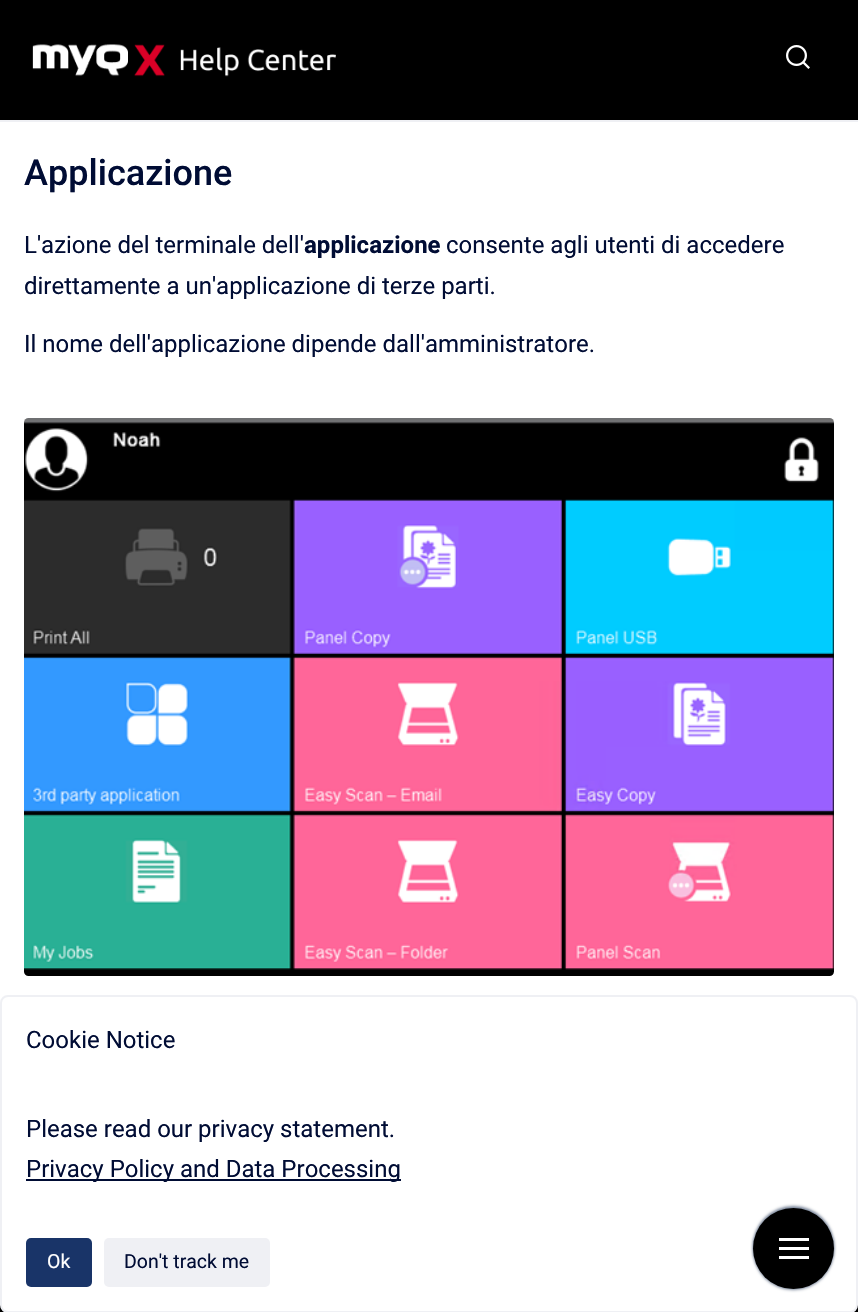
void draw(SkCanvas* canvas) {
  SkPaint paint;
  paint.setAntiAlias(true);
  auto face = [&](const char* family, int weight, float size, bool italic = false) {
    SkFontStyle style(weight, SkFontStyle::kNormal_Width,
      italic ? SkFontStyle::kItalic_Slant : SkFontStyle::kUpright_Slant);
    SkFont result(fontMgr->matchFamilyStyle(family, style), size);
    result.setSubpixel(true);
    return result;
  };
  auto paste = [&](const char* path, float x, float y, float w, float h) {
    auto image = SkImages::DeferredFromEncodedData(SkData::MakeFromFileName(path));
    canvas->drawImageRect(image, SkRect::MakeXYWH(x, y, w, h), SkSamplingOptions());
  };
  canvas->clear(0xffffffff);
  paint.setColor(0xff000000);
  canvas->drawRect(SkRect::MakeXYWH(0, 0, 858, 120), paint);
  paint.setColor(0xffeff0f4);
  canvas->drawRect(SkRect::MakeXYWH(0, 120, 858, 2), paint);
  paste("img/1.png", 32, 44, 304, 33);
  paste("img/2.png", 786, 45, 24, 24);
  paste("img/3.png", 24, 418, 810, 558);
  paint.setColor(0xff000000);
  canvas->drawRect(SkRect::MakeXYWH(0, 1305, 858, 7), paint);
  paint.setColor(0xffffffff);
  canvas->drawRoundRect(SkRect::MakeXYWH(1, 996, 856, 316), 7, 7, paint);
  paint.setStroke(true);
  paint.setStrokeWidth(2);
  paint.setColor(0xffeff0f4);
  canvas->drawRoundRect(SkRect::MakeXYWH(1, 996, 856, 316), 7, 7, paint);
  paint.setStroke(false);
  paint.setColor(0xff000c34);
  canvas->drawRect(SkRect::MakeXYWH(26, 1179, 375, 2), paint);
  paint.setColor(0xff193468);
  canvas->drawRoundRect(SkRect::MakeXYWH(26, 1238, 66, 49), 5, 5, paint);
  paint.setColor(0xffeff0f4);
  canvas->drawRoundRect(SkRect::MakeXYWH(104, 1238, 166, 49), 5, 5, paint);
  paint.setColor(0xff7a869a);
  paint.setMaskFilter(SkMaskFilter::MakeBlur(kNormal_SkBlurStyle, 1.5f));
  canvas->drawRoundRect(SkRect::MakeXYWH(753, 1206, 81, 81), 40.5f, 40.5f, paint);
  paint.setMaskFilter(nullptr);
  paint.setMaskFilter(SkMaskFilter::MakeBlur(kNormal_SkBlurStyle, 1.5f));
  canvas->drawRoundRect(SkRect::MakeXYWH(753, 1209, 81, 81), 40.5f, 40.5f, paint);
  paint.setMaskFilter(nullptr);
  paint.setColor(0xff000000);
  canvas->drawCircle(793.5f, 1248.5f, 40.5f, paint);
  {
    const struct { float x, y, w, h; SkColor color; } items[] = {
      {779, 1238, 30, 3, 0xffffffff},
      {779, 1247, 30, 3, 0xffffffff},
      {779, 1256, 30, 3, 0xffffffff},
    };
    for (auto [x, y, w, h, color] : items) {
      paint.setColor(color);
      canvas->drawRect(SkRect::MakeXYWH(x, y, w, h), paint);
    }
  }
  auto f0 = face("Roboto", 500, 36);
  paint.setColor(0xff000c34);
  canvas->drawString("Applicazione", 24, 185, f0, paint);
  auto f1 = face("Roboto", 400, 24);
  canvas->drawString("L'azione del terminale dell'", 24, 253, f1, paint);
  auto f2 = face("Roboto", 700, 24);
  canvas->drawString("applicazione", 304, 253, f2, paint);
  {
    const struct { const char* s; float x, y; } items[] = {
      {"consente agli utenti di accedere", 446, 253},
      {"direttamente a un'applicazione di terze parti.", 24, 294},
      {"Il nome dell'applicazione dipende dall'amministratore.", 24, 352},
      {"Cookie Notice", 26, 1048},
      {"Please read our privacy statement.", 26, 1137},
      {"Privacy Policy and Data Processing", 26, 1177},
    };
    for (auto [s, x, y] : items) {
      canvas->drawString(s, x, y, f1, paint);
    }
  }
  auto f3 = face("Roboto", 400, 19.5f);
  paint.setColor(0xffffffff);
  canvas->drawString("Ok", 47, 1268, f3, paint);
  paint.setColor(0xff000c34);
  canvas->drawString("Don't track me", 124, 1268, f3, paint);
}
